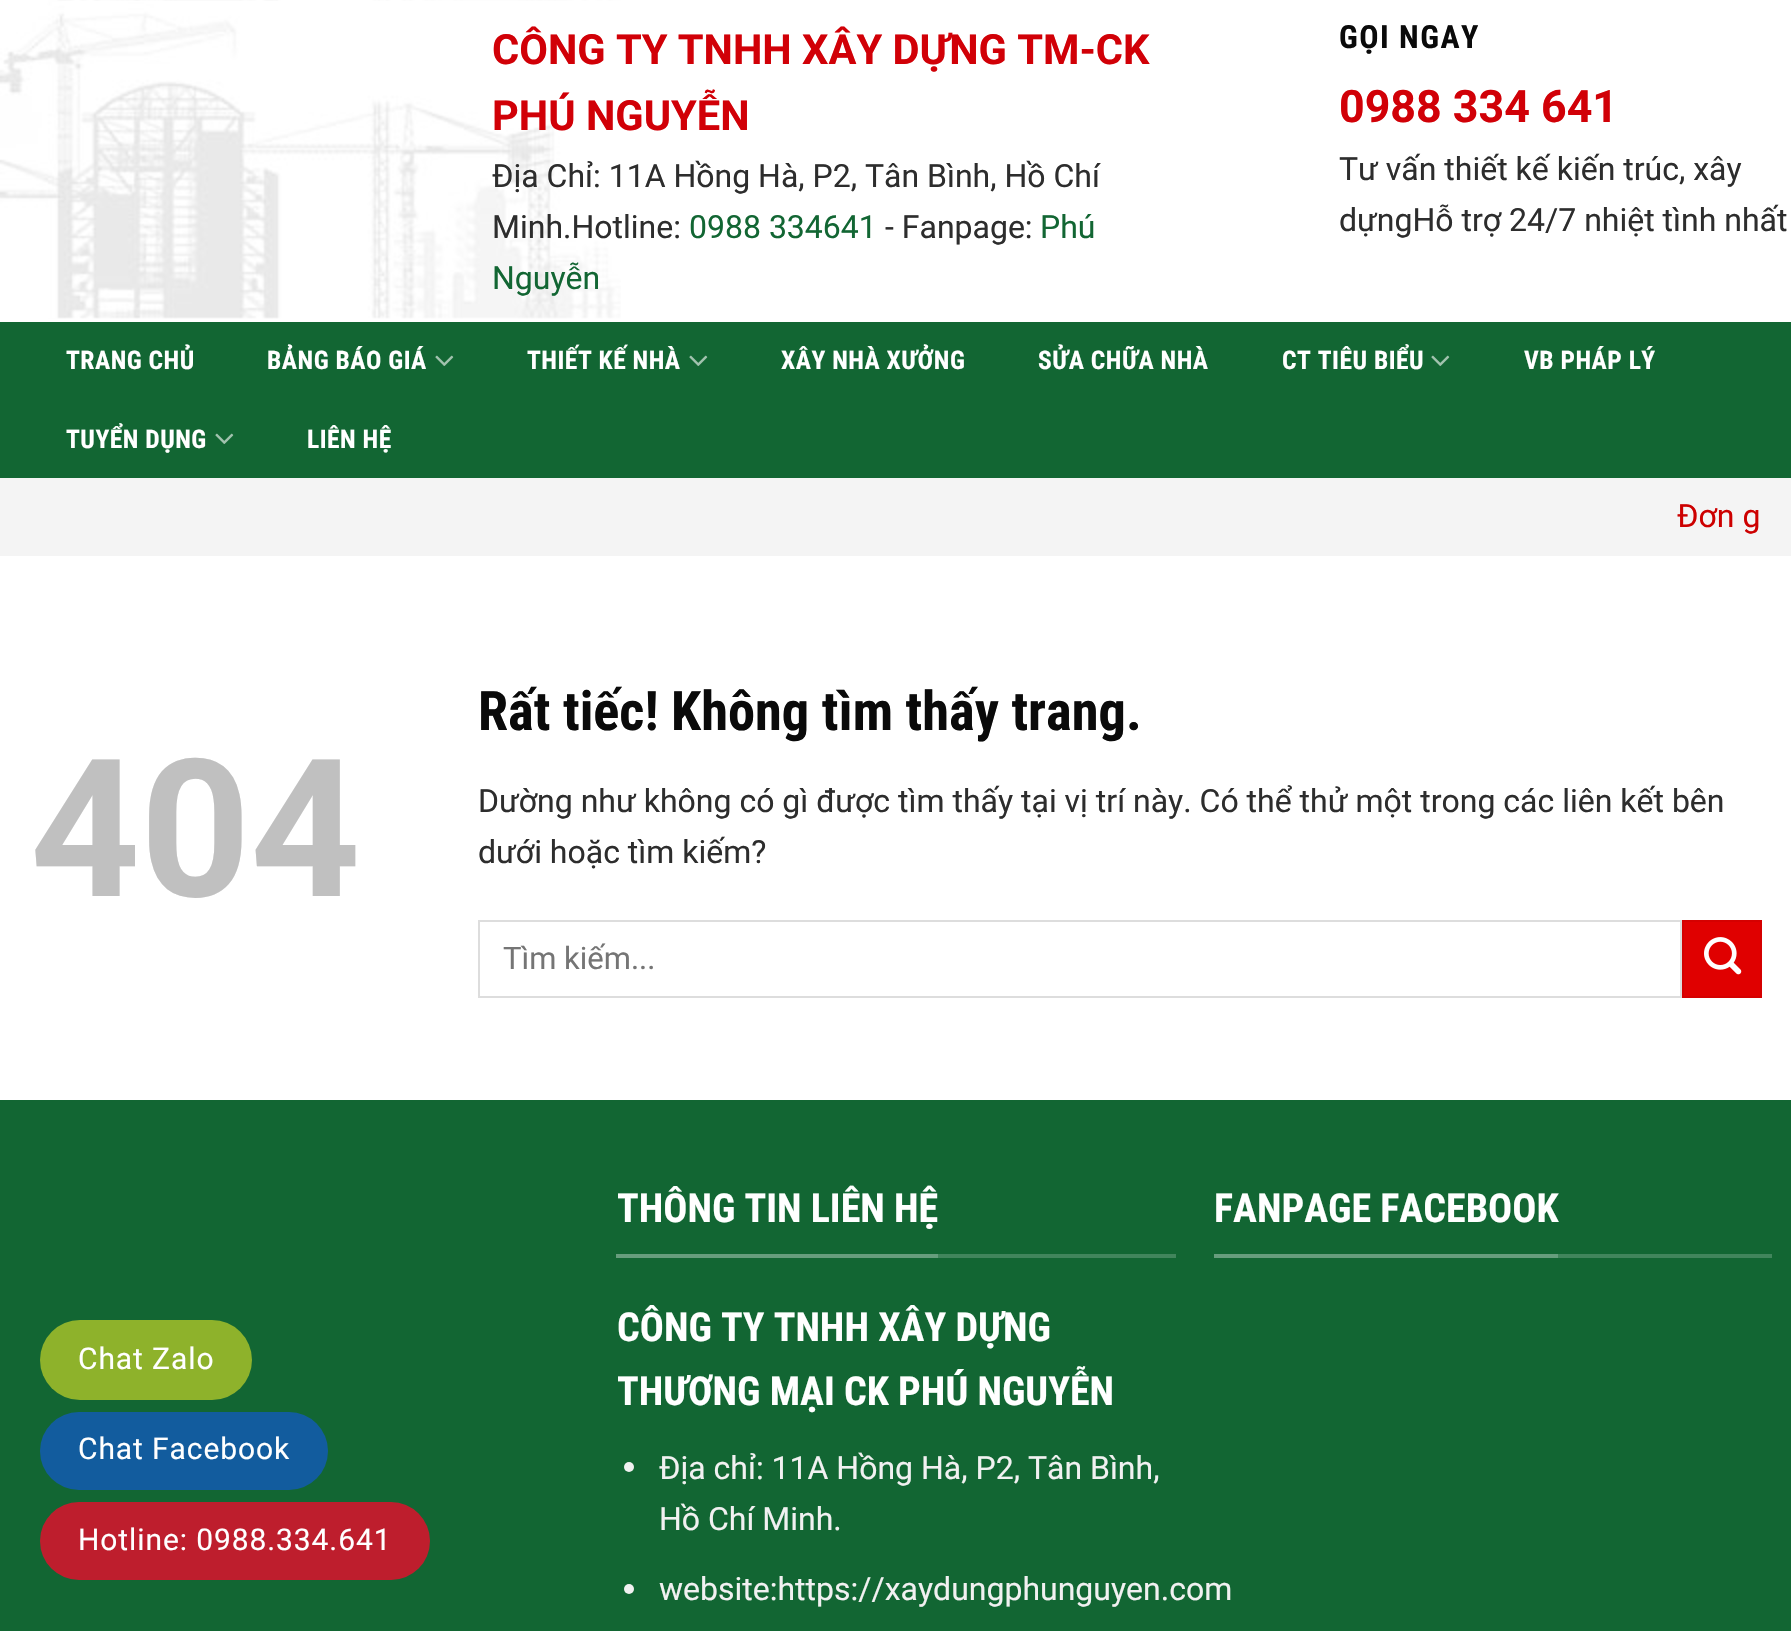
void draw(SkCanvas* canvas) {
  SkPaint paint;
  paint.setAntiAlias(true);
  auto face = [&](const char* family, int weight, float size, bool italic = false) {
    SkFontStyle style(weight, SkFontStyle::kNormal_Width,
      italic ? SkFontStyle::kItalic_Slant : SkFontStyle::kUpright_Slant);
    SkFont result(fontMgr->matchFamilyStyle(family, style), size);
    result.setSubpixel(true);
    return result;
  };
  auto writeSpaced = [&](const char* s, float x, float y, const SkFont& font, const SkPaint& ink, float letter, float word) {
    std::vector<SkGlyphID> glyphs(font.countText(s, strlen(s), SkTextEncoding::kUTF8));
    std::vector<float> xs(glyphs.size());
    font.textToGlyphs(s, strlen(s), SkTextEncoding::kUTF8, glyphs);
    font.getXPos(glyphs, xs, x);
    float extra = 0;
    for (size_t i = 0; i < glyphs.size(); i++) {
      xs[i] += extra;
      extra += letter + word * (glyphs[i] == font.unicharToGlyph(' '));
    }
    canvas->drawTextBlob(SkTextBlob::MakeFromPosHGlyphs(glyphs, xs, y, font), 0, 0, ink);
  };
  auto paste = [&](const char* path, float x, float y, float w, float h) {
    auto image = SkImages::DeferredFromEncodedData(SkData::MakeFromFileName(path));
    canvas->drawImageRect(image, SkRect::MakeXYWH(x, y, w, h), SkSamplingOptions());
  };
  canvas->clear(0xffffffff);
  paste("img/1.png", 0, 0, 621, 319);
  paint.setColor(0xff126633);
  canvas->drawRect(SkRect::MakeXYWH(0, 322, 1791, 156), paint);
  paste("img/2.png", 435, 355, 19, 11);
  paste("img/2.png", 689, 355, 19, 11);
  paste("img/2.png", 1431, 355, 19, 11);
  paste("img/2.png", 215, 433, 19, 11);
  paint.setColor(0xfff4f4f4);
  canvas->drawRect(SkRect::MakeXYWH(0, 478, 1791, 78), paint);
  paint.setStroke(true);
  paint.setStrokeWidth(2);
  paint.setColor(0xffdddddd);
  canvas->drawRect(SkRect::MakeXYWH(479, 921, 1202, 76), paint);
  paint.setStroke(false);
  paint.setColor(0xffe00000);
  canvas->drawRect(SkRect::MakeXYWH(1683, 921, 78, 76), paint);
  paint.setStroke(true);
  paint.setColor(0xffd50000);
  canvas->drawRect(SkRect::MakeXYWH(1683, 921, 78, 76), paint);
  paste("img/3.png", 1704, 937, 38, 38);
  paint.setStroke(false);
  {
    const struct { float x, y, w, h; SkColor color; } items[] = {
      {0, 1100, 1791, 531, 0xff126633},
      {938, 1254, 238, 4, 0xff41855c},
      {616, 1254, 322, 4, 0xff679d7d},
    };
    for (auto [x, y, w, h, color] : items) {
      paint.setColor(color);
      canvas->drawRect(SkRect::MakeXYWH(x, y, w, h), paint);
    }
  }
  paint.setColor(0xfff1f1f1);
  canvas->drawCircle(629, 1467, 5, paint);
  canvas->drawCircle(629, 1589, 5, paint);
  paint.setColor(0xff41855c);
  canvas->drawRect(SkRect::MakeXYWH(1558, 1254, 214, 4), paint);
  paint.setColor(0xff679d7d);
  canvas->drawRect(SkRect::MakeXYWH(1214, 1254, 344, 4), paint);
  paint.setColor(0xff8eb22b);
  canvas->drawRoundRect(SkRect::MakeXYWH(40, 1320, 212, 80), 40, 40, paint);
  paint.setColor(0xff125c9e);
  canvas->drawRoundRect(SkRect::MakeXYWH(40, 1412, 288, 78), 39, 39, paint);
  paint.setColor(0xffbe1e2d);
  canvas->drawRoundRect(SkRect::MakeXYWH(40, 1502, 390, 78), 39, 39, paint);
  auto f0 = face("Roboto", 700, 41.6f);
  paint.setColor(0xffd10007);
  canvas->drawString("CÔNG TY TNHH XÂY DỰNG TM-CK", 492, 64, f0, paint);
  canvas->drawString("PHÚ NGUYỄN", 492, 130, f0, paint);
  auto f1 = face("Roboto", 400, 32);
  paint.setColor(0xff2d2d2d);
  canvas->drawString("Địa Chỉ: 11A Hồng Hà, P2, Tân Bình, Hồ Chí", 492, 187, f1, paint);
  canvas->drawString("Minh.Hotline:", 492, 238, f1, paint);
  paint.setColor(0xff126633);
  canvas->drawString("0988 334641", 689, 238, f1, paint);
  paint.setColor(0xff2d2d2d);
  canvas->drawString("- Fanpage:", 885, 238, f1, paint);
  paint.setColor(0xff126633);
  canvas->drawString("Phú", 1040, 238, f1, paint);
  canvas->drawString("Nguyễn", 492, 289, f1, paint);
  auto f2 = face("Roboto Condensed", 700, 32);
  paint.setColor(0xff0a0a0a);
  writeSpaced("GỌI NGAY", 1339, 48, f2, paint, 1.5f, 0);
  auto f3 = face("Roboto", 700, 44.75f);
  paint.setColor(0xffd10007);
  canvas->drawString("0988 334 641", 1339, 122, f3, paint);
  paint.setColor(0xff2d2d2d);
  canvas->drawString("Tư vấn thiết kế kiến trúc, xây", 1339, 180, f1, paint);
  canvas->drawString("dựngHỗ trợ 24/7 nhiệt tình nhất", 1339, 231, f1, paint);
  auto f4 = face("Roboto Condensed", 700, 25.5f);
  paint.setColor(0xffffffff);
  {
    const struct { const char* s; float x, y; } items[] = {
      {"TRANG CHỦ", 66, 369},
      {"BẢNG BÁO GIÁ", 267, 369},
      {"THIẾT KẾ NHÀ", 527, 369},
      {"XÂY NHÀ XƯỞNG", 781, 369},
      {"SỬA CHỮA NHÀ", 1038, 369},
      {"CT TIÊU BIỂU", 1282, 369},
      {"VB PHÁP LÝ", 1524, 369},
      {"TUYỂN DỤNG", 66, 448},
      {"LIÊN HỆ", 307, 448},
    };
    for (auto [s, x, y] : items) {
      writeSpaced(s, x, y, f4, paint, 0.5f, 0);
    }
  }
  paint.setColor(0xffcd0000);
  canvas->drawString("Đơn g", 1677, 527, f1, paint);
  auto f5 = face("Roboto", 700, 192);
  paint.setColor(0xffc0c0c0);
  canvas->drawString("404", 30, 896, f5, paint);
  auto f6 = face("Roboto Condensed", 700, 54.4f);
  paint.setColor(0xff0a0a0a);
  canvas->drawString("Rất tiếc! Không tìm thấy trang.", 478, 730, f6, paint);
  paint.setColor(0xff2d2d2d);
  canvas->drawString("Dường như không có gì được tìm thấy tại vị trí này. Có thể thử một trong các liên kết bên", 478, 812, f1, paint);
  canvas->drawString("dưới hoặc tìm kiếm?", 478, 863, f1, paint);
  auto f7 = face("Roboto", 400, 31);
  paint.setColor(0xff757575);
  canvas->drawString("Tìm kiếm...", 503, 969, f7, paint);
  auto f8 = face("Roboto Condensed", 700, 40);
  paint.setColor(0xffffffff);
  {
    const struct { const char* s; float x, y; } items[] = {
      {"THÔNG TIN LIÊN HỆ", 617, 1222},
      {"CÔNG TY TNHH XÂY DỰNG", 617, 1341},
      {"THƯƠNG MẠI CK PHÚ NGUYỄN", 617, 1405},
    };
    for (auto [s, x, y] : items) {
      canvas->drawString(s, x, y, f8, paint);
    }
  }
  paint.setColor(0xfff1f1f1);
  {
    const struct { const char* s; float x, y; } items[] = {
      {"Địa chỉ: 11A Hồng Hà, P2, Tân Bình,", 659, 1479},
      {"Hồ Chí Minh.", 659, 1530},
      {"website:https://xaydungphunguyen.com", 659, 1600},
    };
    for (auto [s, x, y] : items) {
      canvas->drawString(s, x, y, f1, paint);
    }
  }
  paint.setColor(0xffffffff);
  canvas->drawString("FANPAGE FACEBOOK", 1214, 1222, f8, paint);
  auto f9 = face("Roboto", 400, 30);
  {
    const struct { const char* s; float x, y; } items[] = {
      {"Chat Zalo", 78, 1369},
      {"Chat Facebook", 78, 1459},
      {"Hotline: 0988.334.641", 78, 1550},
    };
    for (auto [s, x, y] : items) {
      writeSpaced(s, x, y, f9, paint, 0.9f, 0);
    }
  }
}
